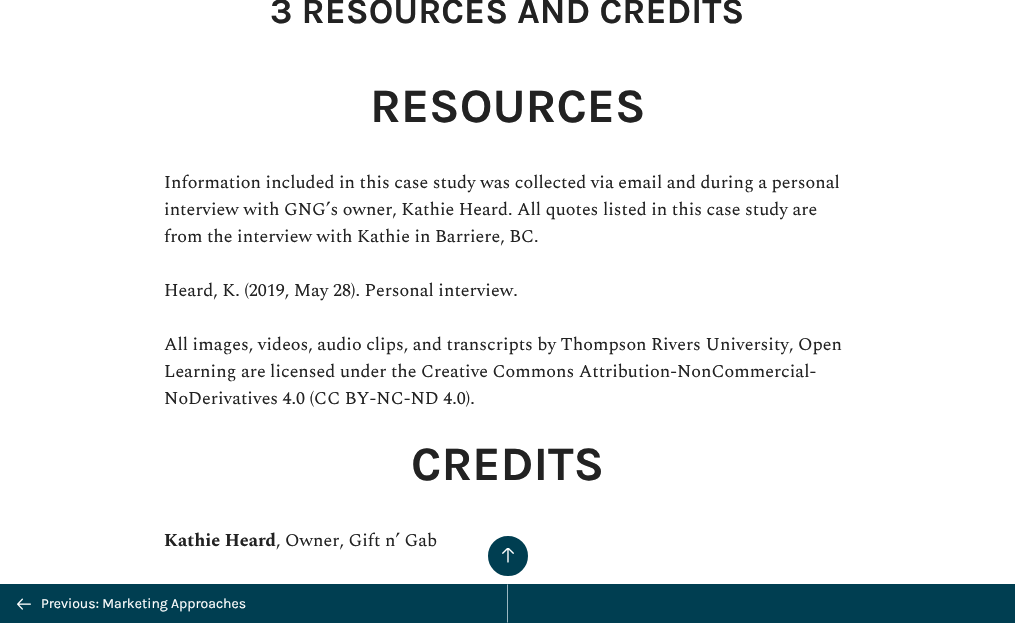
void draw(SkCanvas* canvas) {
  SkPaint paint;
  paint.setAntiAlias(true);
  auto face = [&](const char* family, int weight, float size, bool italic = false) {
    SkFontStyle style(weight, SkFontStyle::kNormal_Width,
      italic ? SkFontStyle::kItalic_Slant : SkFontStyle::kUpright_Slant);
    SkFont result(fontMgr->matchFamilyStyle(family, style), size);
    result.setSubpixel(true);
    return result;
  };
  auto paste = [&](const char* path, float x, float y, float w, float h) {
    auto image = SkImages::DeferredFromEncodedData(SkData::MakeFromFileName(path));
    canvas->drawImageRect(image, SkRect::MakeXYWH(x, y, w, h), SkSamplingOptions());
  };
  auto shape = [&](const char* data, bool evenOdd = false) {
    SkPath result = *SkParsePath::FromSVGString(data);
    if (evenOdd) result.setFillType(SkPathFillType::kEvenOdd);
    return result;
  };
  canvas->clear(0xffffffff);
  paint.setColor(0xff003e51);
  canvas->drawRect(SkRect::MakeXYWH(0, 584, 1015, 39), paint);
  canvas->drawCircle(508, 556, 19, paint);
  paint.setStroke(true);
  paint.setStrokeWidth(2);
  canvas->drawCircle(508, 556, 19, paint);
  paste("img/1.png", 502, 548, 12, 15);
  paint.setStroke(false);
  paint.setColor(0xff9ab7c1);
  canvas->drawPath(shape("M508 584V623L507 622V585Z"), paint);
  paste("img/2.png", 17, 598, 14, 12);
  auto f0 = face("Karla", 700, 36);
  paint.setColor(0xff222222);
  canvas->drawString("3 RESOURCES AND CREDITS", 270, 23, f0, paint);
  auto f1 = face("Karla", 700, 48);
  canvas->drawString("RESOURCES", 370, 122, f1, paint);
  auto f2 = face("Spectral", 400, 18);
  {
    const struct { const char* s; float x, y; } items[] = {
      {"Information included in this case study was collected via email and during a personal", 164, 188},
      {"interview with GNG’s owner, Kathie Heard. All quotes listed in this case study are", 164, 215},
      {"from the interview with Kathie in Barriere, BC.", 164, 242},
      {"Heard, K. (2019, May 28). Personal interview.", 164, 296},
      {"All images, videos, audio clips, and transcripts by Thompson Rivers University, Open", 164, 350},
      {"Learning are licensed under the Creative Commons Attribution-NonCommercial-", 164, 377},
      {"NoDerivatives 4.0 (CC BY-NC-ND 4.0).", 164, 404},
    };
    for (auto [s, x, y] : items) {
      canvas->drawString(s, x, y, f2, paint);
    }
  }
  canvas->drawString("CREDITS", 411, 480, f1, paint);
  auto f3 = face("Spectral", 700, 18);
  canvas->drawString("Kathie Heard", 164, 546, f3, paint);
  canvas->drawString(", Owner, Gift n’ Gab", 276, 546, f2, paint);
  auto f4 = face("Karla", 400, 14);
  paint.setColor(0xffffffff);
  canvas->drawString("Previous: Marketing Approaches", 41, 608, f4, paint);
}
